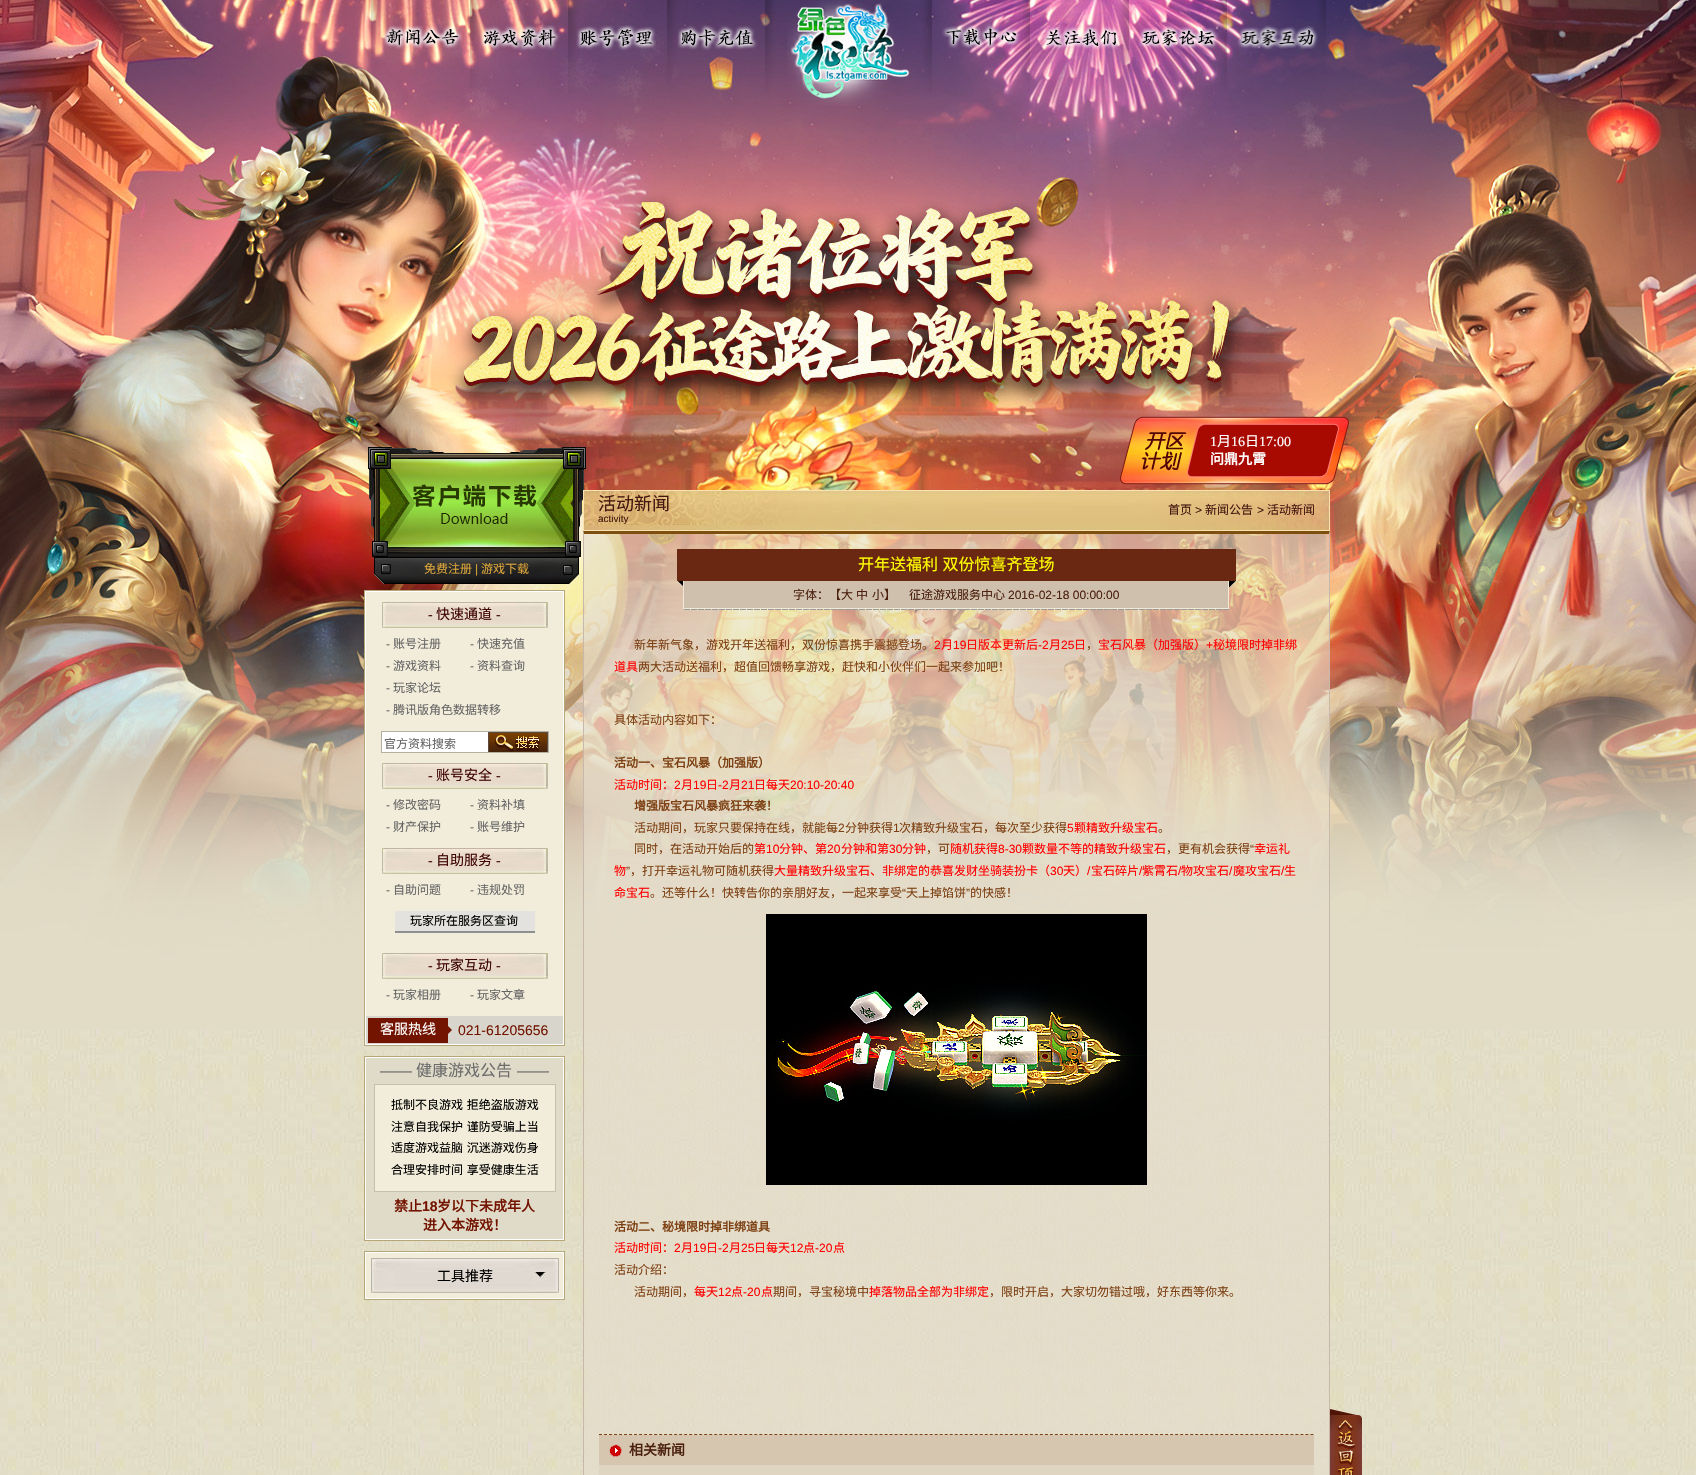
void draw(SkCanvas* canvas) {
  SkPaint paint;
  paint.setAntiAlias(true);
  auto face = [&](const char* family, int weight, float size, bool italic = false) {
    SkFontStyle style(weight, SkFontStyle::kNormal_Width,
      italic ? SkFontStyle::kItalic_Slant : SkFontStyle::kUpright_Slant);
    SkFont result(fontMgr->matchFamilyStyle(family, style), size);
    result.setSubpixel(true);
    return result;
  };
  auto writeSpaced = [&](const char* s, float x, float y, const SkFont& font, const SkPaint& ink, float letter, float word) {
    std::vector<SkGlyphID> glyphs(font.countText(s, strlen(s), SkTextEncoding::kUTF8));
    std::vector<float> xs(glyphs.size());
    font.textToGlyphs(s, strlen(s), SkTextEncoding::kUTF8, glyphs);
    font.getXPos(glyphs, xs, x);
    float extra = 0;
    for (size_t i = 0; i < glyphs.size(); i++) {
      xs[i] += extra;
      extra += letter + word * (glyphs[i] == font.unicharToGlyph(' '));
    }
    canvas->drawTextBlob(SkTextBlob::MakeFromPosHGlyphs(glyphs, xs, y, font), 0, 0, ink);
  };
  auto paste = [&](const char* path, float x, float y, float w, float h) {
    auto image = SkImages::DeferredFromEncodedData(SkData::MakeFromFileName(path));
    canvas->drawImageRect(image, SkRect::MakeXYWH(x, y, w, h), SkSamplingOptions());
  };
  auto shape = [&](const char* data, bool evenOdd = false) {
    SkPath result = *SkParsePath::FromSVGString(data);
    if (evenOdd) result.setFillType(SkPathFillType::kEvenOdd);
    return result;
  };
  canvas->clear(0xffffffff);
  paste("img/1.png", 0, 1030, 1696, 445);
  paste("img/2.png", 0, 0, 1696, 1030);
  paste("img/3.png", 371, 0, 955, 93);
  paste("img/4.png", 383, 25, 80, 25);
  paste("img/5.png", 480, 25, 80, 26);
  paste("img/6.png", 576, 25, 80, 26);
  paste("img/7.png", 677, 25, 80, 26);
  paste("img/8.png", 787, 0, 123, 106);
  paste("img/9.png", 942, 24, 79, 26);
  paste("img/10.png", 1042, 25, 79, 25);
  paste("img/11.png", 1138, 25, 81, 25);
  paste("img/12.png", 1237, 25, 81, 25);
  paste("img/13.png", 1120, 416, 229, 69);
  paste("img/14.png", 368, 447, 218, 110);
  paste("img/15.png", 374, 557, 205, 27);
  paint.setColor(0xfff2edda);
  canvas->drawRect(SkRect::MakeXYWH(366, 592, 197, 424), paint);
  paint.setStroke(true);
  paint.setStrokeWidth(1);
  paint.setColor(0xffb7a67a);
  canvas->drawRect(SkRect::MakeXYWH(364.5f, 590.5f, 200, 455), paint);
  paint.setColor(0xffffffff);
  canvas->drawRect(SkRect::MakeXYWH(365.5f, 591.5f, 198, 453), paint);
  paste("img/16.png", 382, 602, 166, 26);
  paint.setStroke(false);
  canvas->drawRect(SkRect::MakeXYWH(382, 732, 106, 20), paint);
  paint.setStroke(true);
  paint.setColor(0xffb4b1a2);
  canvas->drawRect(SkRect::MakeXYWH(381.5f, 731.5f, 167, 21), paint);
  paste("img/17.png", 488, 732, 60, 20);
  paste("img/16.png", 382, 763, 166, 26);
  paste("img/16.png", 382, 848, 166, 26);
  paint.setStroke(false);
  paint.setColor(0xffe3e2de);
  canvas->drawRect(SkRect::MakeXYWH(395, 911, 140, 20), paint);
  paint.setColor(0xff8f8f8f);
  canvas->drawRect(SkRect::MakeXYWH(395, 931, 140, 2), paint);
  paste("img/16.png", 382, 953, 166, 26);
  paint.setColor(0xffd8d6cc);
  canvas->drawRect(SkRect::MakeXYWH(366, 1016, 197, 28), paint);
  paint.setColor(0xff731401);
  canvas->drawRect(SkRect::MakeXYWH(368, 1018, 80, 25), paint);
  canvas->drawPath(shape("M448 1034V1026L452 1030Z"), paint);
  paint.setColor(0xffe0dbc8);
  canvas->drawRect(SkRect::MakeXYWH(366, 1058, 197, 181), paint);
  paint.setStroke(true);
  paint.setColor(0xffb7a67a);
  canvas->drawRect(SkRect::MakeXYWH(364.5f, 1056.5f, 200, 184), paint);
  paint.setColor(0xffffffff);
  canvas->drawRect(SkRect::MakeXYWH(365.5f, 1057.5f, 198, 182), paint);
  paint.setStroke(false);
  paint.setColor(0xfff2edda);
  canvas->drawRect(SkRect::MakeXYWH(374.5f, 1084.5f, 181, 107), paint);
  paint.setStroke(true);
  paint.setColor(0xffc5c0ab);
  canvas->drawRect(SkRect::MakeXYWH(374.5f, 1084.5f, 181, 107), paint);
  paint.setStroke(false);
  paint.setColor(0xfff2edda);
  canvas->drawRect(SkRect::MakeXYWH(366, 1253, 197, 45), paint);
  paint.setStroke(true);
  paint.setColor(0xffb7a67a);
  canvas->drawRect(SkRect::MakeXYWH(364.5f, 1251.5f, 200, 48), paint);
  paint.setColor(0xffffffff);
  canvas->drawRect(SkRect::MakeXYWH(365.5f, 1252.5f, 198, 46), paint);
  paste("img/18.png", 371, 1258, 188, 35);
  paste("img/19.png", 583, 490, 747, 41);
  paint.setStroke(false);
  paint.setColor(0x99e4dccb);
  canvas->drawRect(SkRect::MakeXYWH(583, 531, 747, 944), paint);
  paint.setColor(0xff7d5010);
  canvas->drawPath(shape("M583 531H1330L1329 534H584Z"), paint);
  paint.setColor(0xffc8b8ab);
  canvas->drawPath(shape("M1330 531V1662L1329 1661V534Z"), paint);
  canvas->drawPath(shape("M583 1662V531L584 534V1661Z"), paint);
  paste("img/20.png", 677, 549, 559, 61);
  paint.setStroke(true);
  paint.setColor(0xff7d4013);
  paint.setPathEffect(SkDashPathEffect::Make({{3, 2.01f}}, 0));
  canvas->drawPath(shape("M599 1434.5H1314"), paint);
  paint.setPathEffect(nullptr);
  paste("img/21.png", 766, 914, 381, 271);
  paint.setStroke(false);
  paint.setColor(0xffd6c6af);
  canvas->drawRect(SkRect::MakeXYWH(599, 1435, 715, 30), paint);
  paste("img/22.png", 609, 1444, 13, 13);
  paint.setColor(0xffe0d5c1);
  canvas->drawRect(SkRect::MakeXYWH(599, 1465, 715, 10), paint);
  paste("img/23.png", 1330, 1409, 32, 66);
  auto f0 = face("Liberation Serif", 400, 14);
  paint.setColor(0xffffffff);
  canvas->drawString("1", 1210, 446, f0, paint);
  auto f1 = face("Noto Sans CJK SC", 400, 14);
  canvas->drawString("月", 1217, 446, f1, paint);
  canvas->drawString("16", 1231, 446, f0, paint);
  canvas->drawString("日", 1245, 446, f1, paint);
  canvas->drawString("17:00", 1259, 446, f0, paint);
  auto f2 = face("Noto Sans CJK SC", 700, 14);
  canvas->drawString("问鼎九霄", 1210, 464, f2, paint);
  auto f3 = face("Noto Sans CJK SC", 400, 12);
  paint.setColor(0xffdca53a);
  canvas->drawString("免费注册", 424, 573, f3, paint);
  auto f4 = face("Liberation Sans", 400, 12);
  canvas->drawString("|", 475, 573, f4, paint);
  canvas->drawString("游戏下载", 481, 573, f3, paint);
  paint.setColor(0xff3e0303);
  canvas->drawString("-", 428, 619, f0, paint);
  canvas->drawString("快速通道", 436, 619, f1, paint);
  canvas->drawString("-", 496, 619, f0, paint);
  paint.setColor(0xff666666);
  canvas->drawString("-", 386, 648, f4, paint);
  canvas->drawString("账号注册", 393, 648, f3, paint);
  canvas->drawString("-", 470, 648, f4, paint);
  canvas->drawString("快速充值", 477, 648, f3, paint);
  canvas->drawString("-", 386, 670, f4, paint);
  canvas->drawString("游戏资料", 393, 670, f3, paint);
  canvas->drawString("-", 470, 670, f4, paint);
  canvas->drawString("资料查询", 477, 670, f3, paint);
  canvas->drawString("-", 386, 692, f4, paint);
  canvas->drawString("玩家论坛", 393, 692, f3, paint);
  canvas->drawString("-", 386, 714, f4, paint);
  canvas->drawString("腾讯版角色数据转移", 393, 714, f3, paint);
  canvas->drawString("官方资料搜索", 384, 748, f3, paint);
  paint.setColor(0xff3e0303);
  canvas->drawString("-", 428, 780, f0, paint);
  canvas->drawString("账号安全", 436, 780, f1, paint);
  canvas->drawString("-", 496, 780, f0, paint);
  paint.setColor(0xff666666);
  canvas->drawString("-", 386, 809, f4, paint);
  canvas->drawString("修改密码", 393, 809, f3, paint);
  canvas->drawString("-", 470, 809, f4, paint);
  canvas->drawString("资料补填", 477, 809, f3, paint);
  canvas->drawString("-", 386, 831, f4, paint);
  canvas->drawString("财产保护", 393, 831, f3, paint);
  canvas->drawString("-", 470, 831, f4, paint);
  canvas->drawString("账号维护", 477, 831, f3, paint);
  paint.setColor(0xff3e0303);
  canvas->drawString("-", 428, 865, f0, paint);
  canvas->drawString("自助服务", 436, 865, f1, paint);
  canvas->drawString("-", 496, 865, f0, paint);
  paint.setColor(0xff666666);
  canvas->drawString("-", 386, 894, f4, paint);
  canvas->drawString("自助问题", 393, 894, f3, paint);
  canvas->drawString("-", 470, 894, f4, paint);
  canvas->drawString("违规处罚", 477, 894, f3, paint);
  paint.setColor(0xff000000);
  canvas->drawString("玩家所在服务区查询", 410, 925, f3, paint);
  paint.setColor(0xff3e0303);
  canvas->drawString("-", 428, 970, f0, paint);
  canvas->drawString("玩家互动", 436, 970, f1, paint);
  canvas->drawString("-", 496, 970, f0, paint);
  paint.setColor(0xff666666);
  canvas->drawString("-", 386, 999, f4, paint);
  canvas->drawString("玩家相册", 393, 999, f3, paint);
  canvas->drawString("-", 470, 999, f4, paint);
  canvas->drawString("玩家文章", 477, 999, f3, paint);
  paint.setColor(0xffffffff);
  canvas->drawString("客服热线", 380, 1034, f1, paint);
  auto f5 = face("Liberation Sans", 400, 14);
  paint.setColor(0xff731401);
  canvas->drawString("021-61205656", 458, 1035, f5, paint);
  auto f6 = face("Liberation Sans", 400, 16);
  paint.setColor(0xff6d6d6d);
  canvas->drawString("——", 380, 1076, f6, paint);
  auto f7 = face("Noto Sans CJK SC", 400, 16);
  canvas->drawString("健康游戏公告", 416, 1076, f7, paint);
  canvas->drawString("——", 517, 1076, f6, paint);
  paint.setColor(0xff000000);
  {
    const struct { const char* s; float x, y; } items[] = {
      {"抵制不良游戏 拒绝盗版游戏", 391, 1109},
      {"注意自我保护 谨防受骗上当", 391, 1131},
      {"适度游戏益脑 沉迷游戏伤身", 391, 1152},
      {"合理安排时间 享受健康生活", 391, 1174},
    };
    for (auto [s, x, y] : items) {
      writeSpaced(s, x, y, f3, paint, 0, 1);
    }
  }
  paint.setColor(0xff731401);
  canvas->drawString("禁止", 394, 1211, f2, paint);
  auto f8 = face("Liberation Sans", 700, 14);
  canvas->drawString("18", 422, 1211, f8, paint);
  canvas->drawString("岁以下未成年人", 437, 1211, f2, paint);
  canvas->drawString("进入本游戏！", 423, 1230, f2, paint);
  paint.setColor(0xff000000);
  canvas->drawString("工具推荐", 437, 1281, f1, paint);
  auto f9 = face("Noto Sans CJK SC", 400, 18);
  paint.setColor(0xff43170f);
  canvas->drawString("活动新闻", 598, 510, f9, paint);
  auto f10 = face("Liberation Sans", 400, 10);
  canvas->drawString("activity", 598, 522, f10, paint);
  canvas->drawString("首页", 1168, 514, f3, paint);
  canvas->drawString(">", 1195, 514, f4, paint);
  canvas->drawString("新闻公告", 1205, 514, f3, paint);
  canvas->drawString(">", 1257, 514, f4, paint);
  canvas->drawString("活动新闻", 1267, 514, f3, paint);
  paint.setColor(0xffffff00);
  writeSpaced("开年送福利 双份惊喜齐登场", 858, 570, f7, paint, 0, 1);
  paint.setColor(0xff4d2110);
  {
    const struct { const char* s; float x, y; } items[] = {
      {"字体：【大", 793, 599},
      {"中", 856, 599},
      {"小】", 872, 599},
      {"征途游戏服务中心", 909, 599},
    };
    for (auto [s, x, y] : items) {
      canvas->drawString(s, x, y, f3, paint);
    }
  }
  canvas->drawString("2016-02-18 00:00:00", 1008, 599, f4, paint);
  paint.setColor(0xff7d4013);
  canvas->drawString("新年新气象，游戏开年送福利，双份惊喜携手震撼登场。", 634, 649, f3, paint);
  paint.setColor(0xffff0000);
  canvas->drawString("2", 934, 649, f4, paint);
  canvas->drawString("月", 941, 649, f3, paint);
  canvas->drawString("19", 953, 649, f4, paint);
  canvas->drawString("日版本更新后", 966, 649, f3, paint);
  canvas->drawString("-2", 1038, 649, f4, paint);
  canvas->drawString("月", 1049, 649, f3, paint);
  canvas->drawString("25", 1061, 649, f4, paint);
  canvas->drawString("日", 1074, 649, f3, paint);
  canvas->drawString("宝石风暴（加强版）", 1098, 649, f3, paint);
  canvas->drawString("+", 1206, 649, f4, paint);
  canvas->drawString("秘境限时掉非绑", 1213, 649, f3, paint);
  paint.setColor(0xff7d4013);
  canvas->drawString("，", 1086, 649, f3, paint);
  paint.setColor(0xffff0000);
  canvas->drawString("道具", 614, 671, f3, paint);
  paint.setColor(0xff7d4013);
  canvas->drawString("两大活动送福利，超值回馈畅享游戏，赶快和小伙伴们一起来参加吧！", 638, 671, f3, paint);
  canvas->drawString("具体活动内容如下：", 614, 724, f3, paint);
  auto f11 = face("Noto Sans CJK SC", 700, 12);
  canvas->drawString("活动一、宝石风暴（加强版）", 614, 767, f11, paint);
  paint.setColor(0xffff0000);
  canvas->drawString("活动时间：", 614, 789, f3, paint);
  canvas->drawString("2", 674, 789, f4, paint);
  canvas->drawString("月", 681, 789, f3, paint);
  canvas->drawString("19", 693, 789, f4, paint);
  canvas->drawString("日", 706, 789, f3, paint);
  canvas->drawString("-2", 718, 789, f4, paint);
  canvas->drawString("月", 729, 789, f3, paint);
  canvas->drawString("21", 741, 789, f4, paint);
  canvas->drawString("日每天", 754, 789, f3, paint);
  canvas->drawString("20:10-20:40", 790, 789, f4, paint);
  paint.setColor(0xff7d4013);
  canvas->drawString("增强版宝石风暴疯狂来袭！", 634, 810, f11, paint);
  canvas->drawString("活动期间，玩家只要保持在线，就能每", 634, 832, f3, paint);
  canvas->drawString("2", 838, 832, f4, paint);
  canvas->drawString("分钟获得", 845, 832, f3, paint);
  canvas->drawString("1", 893, 832, f4, paint);
  canvas->drawString("次精致升级宝石，每次至少获得", 899, 832, f3, paint);
  paint.setColor(0xffff0000);
  canvas->drawString("5", 1067, 832, f4, paint);
  canvas->drawString("颗精致升级宝石", 1074, 832, f3, paint);
  paint.setColor(0xff7d4013);
  canvas->drawString("。", 1158, 832, f3, paint);
  canvas->drawString("同时，在活动开始后的", 634, 853, f3, paint);
  paint.setColor(0xffff0000);
  canvas->drawString("第", 754, 853, f3, paint);
  canvas->drawString("10", 766, 853, f4, paint);
  canvas->drawString("分钟、第", 779, 853, f3, paint);
  canvas->drawString("20", 827, 853, f4, paint);
  canvas->drawString("分钟和第", 841, 853, f3, paint);
  canvas->drawString("30", 889, 853, f4, paint);
  canvas->drawString("分钟", 902, 853, f3, paint);
  paint.setColor(0xff7d4013);
  canvas->drawString("，可", 926, 853, f3, paint);
  paint.setColor(0xffff0000);
  canvas->drawString("随机获得", 950, 853, f3, paint);
  canvas->drawString("8-30", 998, 853, f4, paint);
  canvas->drawString("颗数量不等的精致升级宝石", 1022, 853, f3, paint);
  paint.setColor(0xff7d4013);
  canvas->drawString("，更有机会获得", 1166, 853, f3, paint);
  canvas->drawString("“", 1250, 853, f4, paint);
  paint.setColor(0xffff0000);
  canvas->drawString("幸运礼", 1254, 853, f3, paint);
  canvas->drawString("物", 614, 875, f3, paint);
  paint.setColor(0xff7d4013);
  canvas->drawString("”", 626, 875, f4, paint);
  canvas->drawString("，打开幸运礼物可随机获得", 630, 875, f3, paint);
  paint.setColor(0xffff0000);
  canvas->drawString("大量精致升级宝石、非绑定的恭喜发财坐骑装扮卡（", 774, 875, f3, paint);
  canvas->drawString("30", 1050, 875, f4, paint);
  canvas->drawString("天）", 1063, 875, f3, paint);
  canvas->drawString("/", 1087, 875, f4, paint);
  canvas->drawString("宝石碎片", 1091, 875, f3, paint);
  canvas->drawString("/", 1139, 875, f4, paint);
  canvas->drawString("紫霄石", 1142, 875, f3, paint);
  canvas->drawString("/", 1178, 875, f4, paint);
  canvas->drawString("物攻宝石", 1181, 875, f3, paint);
  canvas->drawString("/", 1229, 875, f4, paint);
  canvas->drawString("魔攻宝石", 1233, 875, f3, paint);
  canvas->drawString("/", 1281, 875, f4, paint);
  canvas->drawString("生", 1284, 875, f3, paint);
  canvas->drawString("命宝石", 614, 897, f3, paint);
  paint.setColor(0xff7d4013);
  canvas->drawString("。还等什么！快转告你的亲朋好友，一起来享受", 650, 897, f3, paint);
  canvas->drawString("“", 902, 897, f4, paint);
  canvas->drawString("天上掉馅饼", 906, 897, f3, paint);
  canvas->drawString("”", 966, 897, f4, paint);
  canvas->drawString("的快感！", 970, 897, f3, paint);
  canvas->drawString("活动二、秘境限时掉非绑道具", 614, 1231, f11, paint);
  paint.setColor(0xffff0000);
  canvas->drawString("活动时间：", 614, 1252, f3, paint);
  canvas->drawString("2", 674, 1252, f4, paint);
  canvas->drawString("月", 681, 1252, f3, paint);
  canvas->drawString("19", 693, 1252, f4, paint);
  canvas->drawString("日", 706, 1252, f3, paint);
  canvas->drawString("-2", 718, 1252, f4, paint);
  canvas->drawString("月", 729, 1252, f3, paint);
  canvas->drawString("25", 741, 1252, f4, paint);
  canvas->drawString("日每天", 754, 1252, f3, paint);
  canvas->drawString("12", 790, 1252, f4, paint);
  canvas->drawString("点", 803, 1252, f3, paint);
  canvas->drawString("-20", 815, 1252, f4, paint);
  canvas->drawString("点", 833, 1252, f3, paint);
  paint.setColor(0xff7d4013);
  canvas->drawString("活动介绍：", 614, 1274, f3, paint);
  canvas->drawString("活动期间，", 634, 1296, f3, paint);
  paint.setColor(0xffff0000);
  canvas->drawString("每天", 694, 1296, f3, paint);
  canvas->drawString("12", 718, 1296, f4, paint);
  canvas->drawString("点", 731, 1296, f3, paint);
  canvas->drawString("-20", 743, 1296, f4, paint);
  canvas->drawString("点", 761, 1296, f3, paint);
  paint.setColor(0xff7d4013);
  canvas->drawString("期间，寻宝秘境中", 773, 1296, f3, paint);
  paint.setColor(0xffff0000);
  canvas->drawString("掉落物品全部为非绑定", 869, 1296, f3, paint);
  paint.setColor(0xff7d4013);
  canvas->drawString("，限时开启，大家切勿错过哦，好东西等你来。", 989, 1296, f3, paint);
  paint.setColor(0xff4d2110);
  canvas->drawString("相关新闻", 629, 1455, f2, paint);
}
